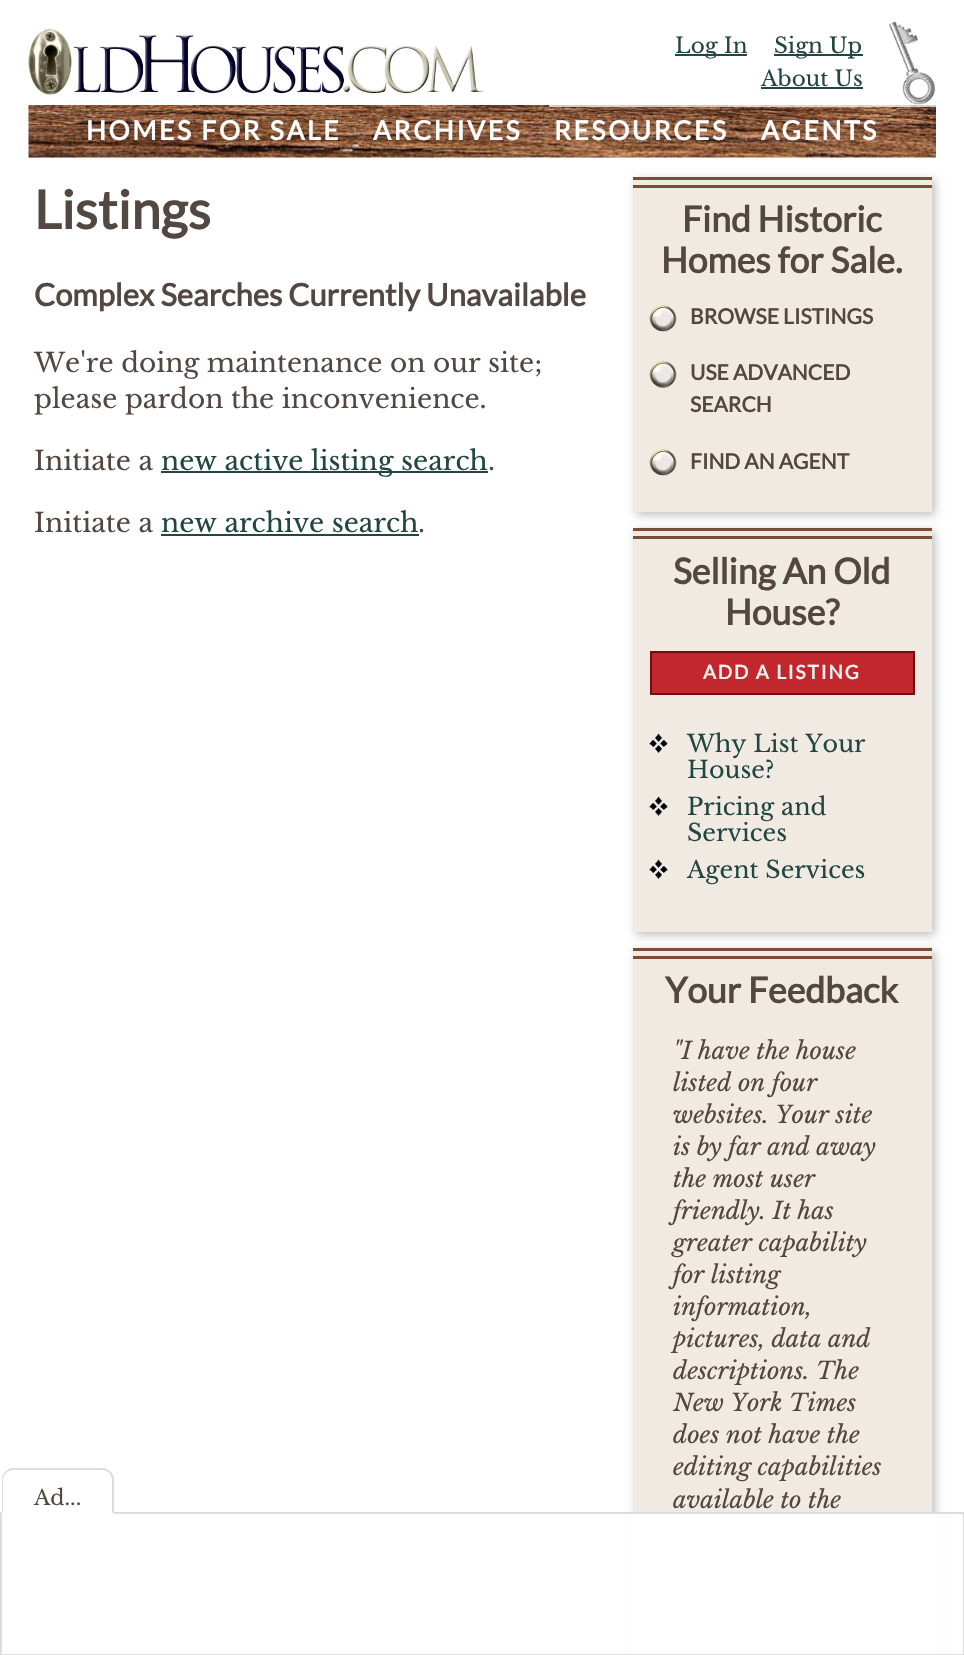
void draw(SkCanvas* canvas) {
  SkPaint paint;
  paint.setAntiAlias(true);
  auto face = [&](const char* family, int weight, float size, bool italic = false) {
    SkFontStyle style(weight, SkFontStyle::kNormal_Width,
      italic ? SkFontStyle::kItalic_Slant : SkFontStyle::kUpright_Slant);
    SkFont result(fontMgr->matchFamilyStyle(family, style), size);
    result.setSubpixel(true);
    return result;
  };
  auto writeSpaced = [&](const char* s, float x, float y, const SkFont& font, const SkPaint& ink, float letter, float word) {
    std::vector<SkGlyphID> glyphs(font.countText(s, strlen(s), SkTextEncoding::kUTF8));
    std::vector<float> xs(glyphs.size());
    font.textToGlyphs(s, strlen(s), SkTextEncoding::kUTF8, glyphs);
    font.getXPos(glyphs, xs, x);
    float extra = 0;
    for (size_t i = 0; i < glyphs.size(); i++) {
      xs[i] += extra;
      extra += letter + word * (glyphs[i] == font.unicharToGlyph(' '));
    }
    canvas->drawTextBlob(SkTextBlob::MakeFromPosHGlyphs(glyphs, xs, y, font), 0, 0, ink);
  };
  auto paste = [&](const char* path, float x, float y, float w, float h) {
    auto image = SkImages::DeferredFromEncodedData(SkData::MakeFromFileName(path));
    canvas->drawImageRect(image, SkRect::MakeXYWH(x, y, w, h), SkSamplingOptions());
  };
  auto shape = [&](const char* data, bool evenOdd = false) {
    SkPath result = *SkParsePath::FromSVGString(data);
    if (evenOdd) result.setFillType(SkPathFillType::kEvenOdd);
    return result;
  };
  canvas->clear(0xffffffff);
  paste("img/6.png", 28, 105, 908, 53);
  paint.setColor(0xb3ffffff);
  canvas->drawRect(SkRect::MakeXYWH(549, 105, 387, 2), paint);
  paste("img/1.png", 889, 21, 47, 84);
  {
    const struct { float x, y, w, h; SkColor color; } items[] = {
      {675, 54, 72, 2, 0xff224641},
      {774, 54, 89, 2, 0xff224641},
      {761, 87, 102, 2, 0xff224641},
    };
    for (auto [x, y, w, h, color] : items) {
      paint.setColor(color);
      canvas->drawRect(SkRect::MakeXYWH(x, y, w, h), paint);
    }
  }
  canvas->save();
  canvas->clipPath(shape("M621 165H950V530H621ZM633 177H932V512H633Z", true), true);
  paint.setColor(0x40000000);
  paint.setMaskFilter(SkMaskFilter::MakeBlur(kNormal_SkBlurStyle, 4.5f));
  canvas->drawRect(SkRect::MakeXYWH(636, 180, 299, 335), paint);
  paint.setMaskFilter(nullptr);
  canvas->restore();
  {
    const struct { float x, y, w, h; SkColor color; } items[] = {
      {633, 180, 299, 332, 0x269a7044},
      {633, 177, 299, 3, 0xff7c4e35},
      {633, 185, 299, 3, 0xff7c4e35},
    };
    for (auto [x, y, w, h, color] : items) {
      paint.setColor(color);
      canvas->drawRect(SkRect::MakeXYWH(x, y, w, h), paint);
    }
  }
  paste("img/2.png", 649, 305, 28, 27);
  paste("img/3.png", 649, 361, 28, 27);
  paste("img/2.png", 649, 449, 28, 27);
  canvas->save();
  canvas->clipPath(shape("M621 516H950V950H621ZM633 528H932V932H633Z", true), true);
  paint.setColor(0x40000000);
  paint.setMaskFilter(SkMaskFilter::MakeBlur(kNormal_SkBlurStyle, 4.5f));
  canvas->drawRect(SkRect::MakeXYWH(636, 531, 299, 404), paint);
  paint.setMaskFilter(nullptr);
  canvas->restore();
  {
    const struct { float x, y, w, h; SkColor color; } items[] = {
      {633, 531, 299, 401, 0x269a7044},
      {633, 528, 299, 3, 0xff7c4e35},
      {633, 536, 299, 3, 0xff7c4e35},
    };
    for (auto [x, y, w, h, color] : items) {
      paint.setColor(color);
      canvas->drawRect(SkRect::MakeXYWH(x, y, w, h), paint);
    }
  }
  paint.setColor(0xffc1272d);
  canvas->drawRect(SkRect::MakeXYWH(651, 652, 263, 42), paint);
  paint.setStroke(true);
  paint.setStrokeWidth(2);
  paint.setColor(0xff720e12);
  canvas->drawRect(SkRect::MakeXYWH(651, 652, 263, 42), paint);
  paste("img/4.png", 649, 733, 19, 20);
  paste("img/4.png", 649, 796, 19, 20);
  paste("img/4.png", 649, 859, 19, 20);
  canvas->save();
  canvas->clipPath(shape("M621 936H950V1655H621ZM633 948H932V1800H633Z", true), true);
  paint.setStroke(false);
  paint.setColor(0x40000000);
  paint.setMaskFilter(SkMaskFilter::MakeBlur(kNormal_SkBlurStyle, 4.5f));
  canvas->drawRect(SkRect::MakeXYWH(636, 951, 299, 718), paint);
  paint.setMaskFilter(nullptr);
  canvas->restore();
  {
    const struct { float x, y, w, h; SkColor color; } items[] = {
      {633, 951, 299, 561, 0x269a7044},
      {633, 948, 299, 3, 0xff7c4e35},
      {633, 956, 299, 3, 0xff7c4e35},
    };
    for (auto [x, y, w, h, color] : items) {
      paint.setColor(color);
      canvas->drawRect(SkRect::MakeXYWH(x, y, w, h), paint);
    }
  }
  paste("img/5.png", 28, 28, 455, 67);
  {
    const struct { float x, y, w, h; SkColor color; } items[] = {
      {161, 471, 327, 2, 0xff224641},
      {161, 534, 258, 2, 0xff224641},
      {628, 1514, 315, 140, 0xffffffff},
    };
    for (auto [x, y, w, h, color] : items) {
      paint.setColor(color);
      canvas->drawRect(SkRect::MakeXYWH(x, y, w, h), paint);
    }
  }
  paint.setStroke(true);
  paint.setColor(0xffdddddd);
  canvas->drawRect(SkRect::MakeXYWH(1, 1513, 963, 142), paint);
  paint.setStroke(false);
  paint.setColor(0xffffffff);
  canvas->drawPath(shape("M14 1469H102C108.5 1469 114 1474.5 114 1481V1514H2V1481C2 1474.5 7.5 1469 14 1469Z"), paint);
  paint.setColor(0xffdddddd);
  canvas->drawPath(shape("M14 1470C11 1470 8 1471 6 1473L5 1472C7 1470 8 1469 11 1468H105C107 1469 109 1470 111 1472L109 1473C108 1471 105 1470 102 1470Z"), paint);
  canvas->drawPath(shape("M114 1514V1480C114 1477 113 1474 111 1472L109 1473C111 1475 112 1478 112 1480V1512Z"), paint);
  paint.setColor(0xffffffff);
  canvas->drawPath(shape("M114 1514H2L3 1512H112Z"), paint);
  paint.setColor(0xffdddddd);
  canvas->drawPath(shape("M2 1513V1480C2 1477 3 1474 5 1472L6 1473C4 1475 3 1478 3 1480V1512Z"), paint);
  auto f0 = face("Libre Baskerville", 400, 21.5f);
  paint.setColor(0xff224641);
  {
    const struct { const char* s; float x, y; } items[] = {
      {"Log In", 675, 53},
      {"Sign Up", 774, 53},
      {"About Us", 761, 86},
    };
    for (auto [s, x, y] : items) {
      canvas->drawString(s, x, y, f0, paint);
    }
  }
  auto f1 = face("Lato", 700, 35.5f);
  paint.setColor(0xff534741);
  canvas->drawString("Find Historic", 682, 232, f1, paint);
  canvas->drawString("Homes for Sale.", 661, 273, f1, paint);
  auto f2 = face("Lato", 700, 21.1f);
  {
    const struct { const char* s; float x, y; } items[] = {
      {"BROWSE LISTINGS", 690, 324},
      {"USE ADVANCED", 690, 380},
      {"SEARCH", 690, 412},
      {"FIND AN AGENT", 690, 469},
    };
    for (auto [s, x, y] : items) {
      canvas->drawString(s, x, y, f2, paint);
    }
  }
  canvas->drawString("Selling An Old", 673, 584, f1, paint);
  canvas->drawString("House?", 725, 625, f1, paint);
  auto f3 = face("Lato", 700, 19);
  paint.setColor(0xfff0f0f0);
  writeSpaced("ADD A LISTING", 703, 679, f3, paint, 1.9f, 0);
  auto f4 = face("Libre Baskerville", 400, 23.75f);
  paint.setColor(0xff224641);
  {
    const struct { const char* s; float x, y; } items[] = {
      {"Why List Your", 687, 752},
      {"House?", 687, 778},
      {"Pricing and", 687, 815},
      {"Services", 687, 841},
      {"Agent Services", 687, 878},
    };
    for (auto [s, x, y] : items) {
      canvas->drawString(s, x, y, f4, paint);
    }
  }
  paint.setColor(0xff534741);
  canvas->drawString("Your Feedback", 665, 1003, f1, paint);
  auto f5 = face("Libre Baskerville", 400, 23.75f, true);
  {
    const struct { const char* s; float x, y; } items[] = {
      {"\"I have the house", 673, 1059},
      {"listed on four", 673, 1091},
      {"websites. Your site", 673, 1123},
      {"is by far and away", 673, 1155},
      {"the most user", 673, 1187},
      {"friendly. It has", 673, 1219},
      {"greater capability", 673, 1251},
      {"for listing", 673, 1283},
      {"information,", 673, 1315},
      {"pictures, data and", 673, 1347},
      {"descriptions. The", 673, 1379},
      {"New York Times", 673, 1411},
      {"does not have the", 673, 1443},
      {"editing capabilities", 673, 1475},
      {"available to the", 673, 1508},
    };
    for (auto [s, x, y] : items) {
      canvas->drawString(s, x, y, f5, paint);
    }
  }
  auto f6 = face("Lato", 700, 26.4f);
  paint.setColor(0xffffffff);
  {
    const struct { const char* s; float x, y; } items[] = {
      {"HOMES FOR SALE", 86, 140},
      {"ARCHIVES", 373, 140},
      {"RESOURCES", 554, 140},
      {"AGENTS", 761, 140},
    };
    for (auto [s, x, y] : items) {
      writeSpaced(s, x, y, f6, paint, 2.6f, 0);
    }
  }
  auto f7 = face("Lato", 700, 53);
  paint.setColor(0xff534741);
  canvas->drawString("Listings", 34, 229, f7, paint);
  auto f8 = face("Lato", 700, 30.9f);
  canvas->drawString("Complex Searches Currently Unavailable", 34, 306, f8, paint);
  auto f9 = face("Libre Baskerville", 400, 26.4f);
  {
    const struct { const char* s; float x, y; } items[] = {
      {"We're doing maintenance on our site;", 34, 372},
      {"please pardon the inconvenience.", 34, 408},
      {"Initiate a", 34, 470},
    };
    for (auto [s, x, y] : items) {
      canvas->drawString(s, x, y, f9, paint);
    }
  }
  paint.setColor(0xff224641);
  canvas->drawString("new active listing search", 161, 470, f9, paint);
  paint.setColor(0xff534741);
  canvas->drawString(".", 488, 470, f9, paint);
  canvas->drawString("Initiate a", 34, 532, f9, paint);
  paint.setColor(0xff224641);
  canvas->drawString("new archive search", 161, 532, f9, paint);
  paint.setColor(0xff534741);
  canvas->drawString(".", 418, 532, f9, paint);
  auto f10 = face("Libre Baskerville", 400, 21.1f);
  canvas->drawString("Ad...", 34, 1505, f10, paint);
}
